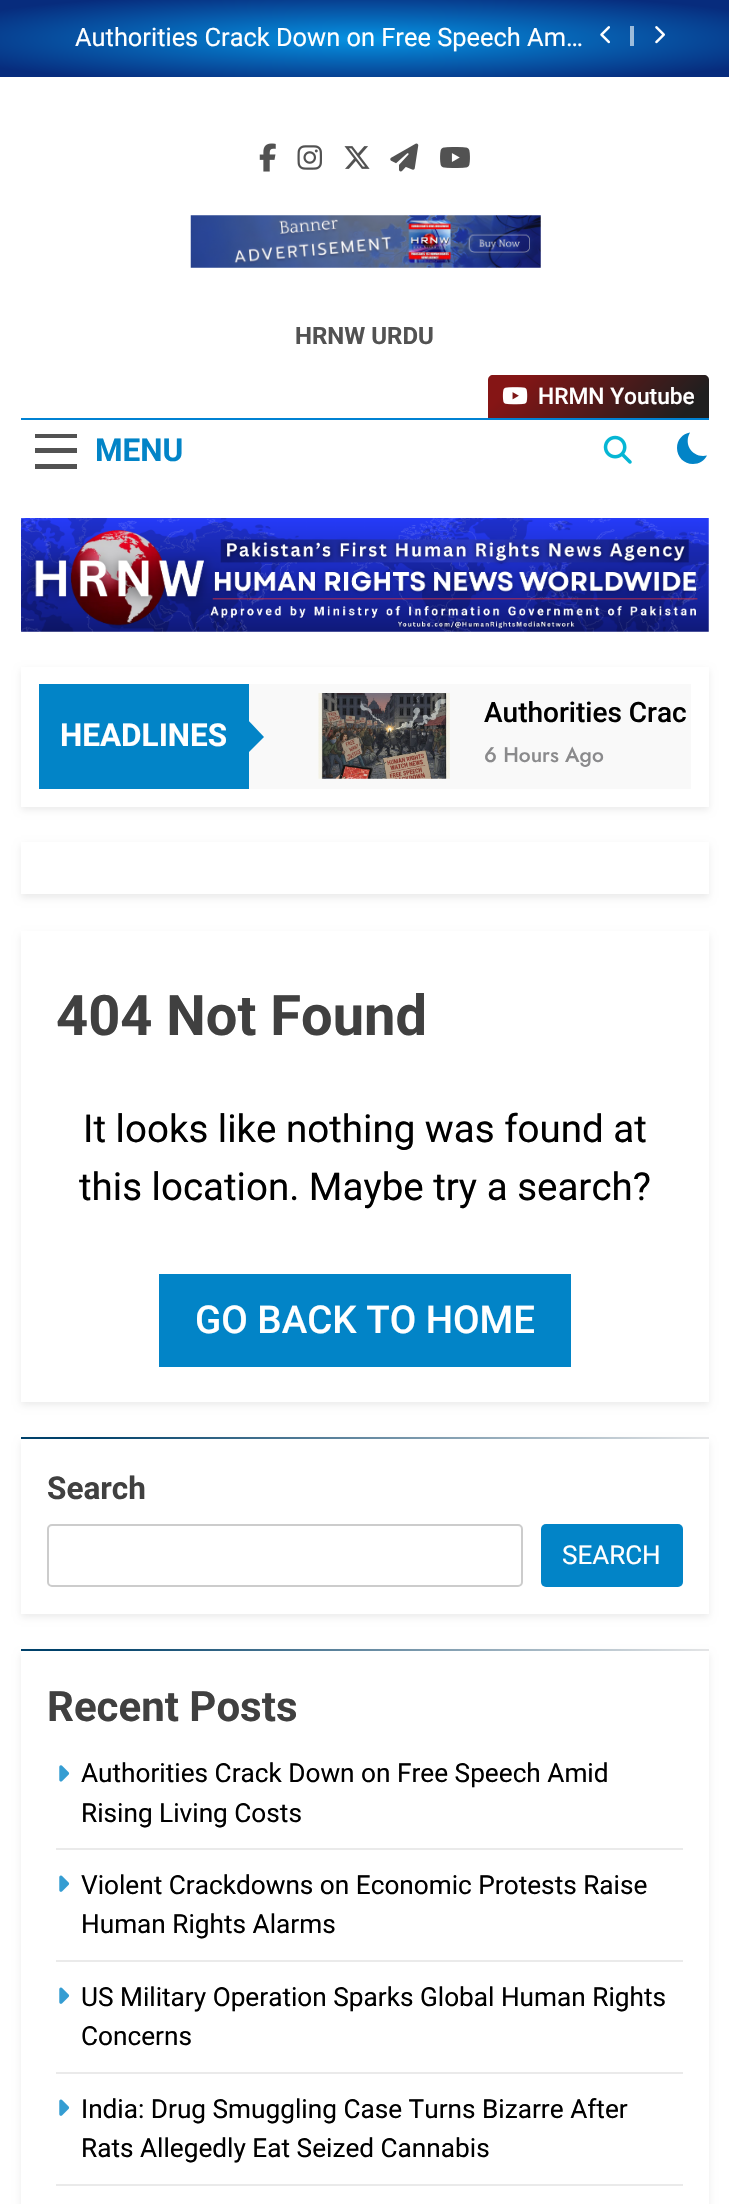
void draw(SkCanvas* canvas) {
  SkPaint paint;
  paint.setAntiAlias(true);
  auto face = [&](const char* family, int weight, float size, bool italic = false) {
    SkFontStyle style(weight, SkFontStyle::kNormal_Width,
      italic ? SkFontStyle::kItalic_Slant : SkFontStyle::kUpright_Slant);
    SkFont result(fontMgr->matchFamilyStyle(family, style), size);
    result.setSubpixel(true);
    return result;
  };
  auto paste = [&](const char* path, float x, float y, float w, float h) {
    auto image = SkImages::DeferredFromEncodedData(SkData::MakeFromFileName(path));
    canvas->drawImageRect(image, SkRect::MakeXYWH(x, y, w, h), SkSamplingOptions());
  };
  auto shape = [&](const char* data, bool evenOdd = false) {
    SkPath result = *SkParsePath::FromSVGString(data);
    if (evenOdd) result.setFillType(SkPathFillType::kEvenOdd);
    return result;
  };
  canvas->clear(0xffffffff);
  {
    const SkColor colors[] = {0xff0693e3, 0xff072c7d};
    const float stops[] = {0, 0.89f};
    SkMatrix m = SkMatrix::Translate(365, 39).preScale(516, 54);
    paint.setShader(SkGradientShader::MakeRadial({0, 0}, 1, colors, stops, 2, SkTileMode::kClamp, 0, &m));
    paint.setAlpha(255);
  }
  canvas->drawRect(SkRect::MakeXYWH(0, 0, 729, 77), paint);
  {
    const SkColor colors[] = {0xff9bd4f4, 0xff9cabcb};
    const float stops[] = {0, 0.89f};
    SkMatrix m = SkMatrix::Translate(365, 39).preScale(516, 54);
    paint.setShader(SkGradientShader::MakeRadial({0, 0}, 1, colors, stops, 2, SkTileMode::kClamp, 0, &m));
    paint.setAlpha(255);
  }
  canvas->drawRect(SkRect::MakeXYWH(630, 26, 4, 20), paint);
  paste("img/1.png", 600, 26, 10, 18);
  paste("img/2.png", 655, 26, 10, 18);
  paste("img/3.png", 259, 143, 17, 29);
  paste("img/4.png", 297, 145, 25, 25);
  paste("img/5.png", 344, 146, 26, 23);
  paste("img/6.png", 390, 143, 29, 29);
  paste("img/7.png", 440, 147, 30, 21);
  paste("img/8.png", 190, 215, 351, 53);
  paint.setShader(nullptr);
  paint.setColor(0xff0082d3);
  canvas->drawRect(SkRect::MakeXYWH(21, 418, 688, 2), paint);
  {
    const SkColor colors[] = {0xff851515, 0xff1f1f1f};
    const float stops[] = {0.13f, 0.89f};
    const SkPoint ends[] = {{532, 330}, {665, 462}};
    paint.setShader(SkGradientShader::MakeLinear(ends, colors, stops, 2, SkTileMode::kClamp));
    paint.setAlpha(255);
  }
  canvas->drawPath(shape("M493 375H704C707 375 709 377 709 380V418H488V380C488 377 490 375 493 375Z"), paint);
  paste("img/9.png", 502, 387, 26, 18);
  paint.setShader(nullptr);
  {
    const struct { float x, y, w, h; SkColor color; } items[] = {
      {35, 434, 42, 4, 0xff525252},
      {35, 448, 42, 5, 0xff525252},
      {35, 464, 42, 5, 0xff525252},
    };
    for (auto [x, y, w, h, color] : items) {
      paint.setColor(color);
      canvas->drawRect(SkRect::MakeXYWH(x, y, w, h), paint);
    }
  }
  paste("img/10.png", 603, 435, 29, 29);
  paint.setColor(0xff0284c7);
  canvas->drawPath(shape("M707 455.5C693 458.5 683 445 690 432.5C682.5 433.5 677 440 677 448C677 457 684 464 693 464C699 464 704.5 460.5 707 455.5Z"), paint);
  paste("img/11.png", 21, 518, 688, 114);
  paint.setColor(0x14000000);
  paint.setMaskFilter(SkMaskFilter::MakeBlur(kNormal_SkBlurStyle, 3.5f));
  canvas->drawRect(SkRect::MakeXYWH(21, 670, 688, 140), paint);
  paint.setMaskFilter(nullptr);
  {
    const struct { float x, y, w, h; SkColor color; } items[] = {
      {21, 667, 688, 140, 0xffffffff},
      {39, 684, 210, 105, 0xff0284c7},
      {249, 684, 442, 105, 0xfff9f9f9},
    };
    for (auto [x, y, w, h, color] : items) {
      paint.setColor(color);
      canvas->drawRect(SkRect::MakeXYWH(x, y, w, h), paint);
    }
  }
  paint.setColor(0xff0284c7);
  canvas->drawPath(shape("M247 754V719L264 737Z"), paint);
  paste("img/12.png", 318, 693, 132, 86);
  paint.setColor(0x14000000);
  paint.setMaskFilter(SkMaskFilter::MakeBlur(kNormal_SkBlurStyle, 3.5f));
  canvas->drawRect(SkRect::MakeXYWH(21, 845, 688, 53), paint);
  paint.setMaskFilter(nullptr);
  paint.setColor(0xffffffff);
  canvas->drawRect(SkRect::MakeXYWH(21, 842, 688, 52), paint);
  paint.setColor(0x14000000);
  paint.setMaskFilter(SkMaskFilter::MakeBlur(kNormal_SkBlurStyle, 3.5f));
  canvas->drawRect(SkRect::MakeXYWH(21, 935, 688, 470), paint);
  paint.setMaskFilter(nullptr);
  paint.setColor(0xffffffff);
  canvas->drawRect(SkRect::MakeXYWH(21, 931, 688, 471), paint);
  paint.setColor(0xff0284c7);
  canvas->drawRect(SkRect::MakeXYWH(159, 1274, 412, 93), paint);
  paint.setColor(0x14000000);
  paint.setMaskFilter(SkMaskFilter::MakeBlur(kNormal_SkBlurStyle, 3.5f));
  canvas->drawRect(SkRect::MakeXYWH(21, 1442, 688, 175), paint);
  paint.setMaskFilter(nullptr);
  paint.setColor(0xffffffff);
  canvas->drawRect(SkRect::MakeXYWH(21, 1439, 688, 175), paint);
  {
    const SkColor colors[] = {0xff00416a, 0xffe4e5e6};
    const float stops[] = {0.1f, 1};
    const SkPoint ends[] = {{192, 1265}, {537, 1610}};
    paint.setShader(SkGradientShader::MakeLinear(ends, colors, stops, 2, SkTileMode::kClamp));
    paint.setAlpha(255);
  }
  canvas->drawRect(SkRect::MakeXYWH(21, 1437, 688, 2), paint);
  paint.setStroke(true);
  paint.setStrokeWidth(2);
  paint.setShader(nullptr);
  paint.setColor(0xffcccccc);
  canvas->drawRoundRect(SkRect::MakeXYWH(48, 1525, 474, 61), 4, 4, paint);
  paint.setStroke(false);
  paint.setColor(0xff0284c7);
  canvas->drawRoundRect(SkRect::MakeXYWH(541, 1524, 142, 63), 5, 5, paint);
  paint.setColor(0x14000000);
  paint.setMaskFilter(SkMaskFilter::MakeBlur(kNormal_SkBlurStyle, 3.5f));
  canvas->drawRect(SkRect::MakeXYWH(21, 1654, 688, 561), paint);
  paint.setMaskFilter(nullptr);
  paint.setColor(0xffffffff);
  canvas->drawRect(SkRect::MakeXYWH(21, 1651, 688, 553), paint);
  {
    const SkColor colors[] = {0xff00416a, 0xffe4e5e6};
    const float stops[] = {0.1f, 1};
    const SkPoint ends[] = {{192, 1477}, {537, 1822}};
    paint.setShader(SkGradientShader::MakeLinear(ends, colors, stops, 2, SkTileMode::kClamp));
    paint.setAlpha(255);
  }
  canvas->drawRect(SkRect::MakeXYWH(21, 1649, 688, 2), paint);
  paint.setShader(nullptr);
  paint.setColor(0xffeaeaea);
  canvas->drawRect(SkRect::MakeXYWH(56, 1848, 627, 2), paint);
  paste("img/13.png", 59, 1765, 11, 17);
  canvas->drawRect(SkRect::MakeXYWH(56, 1960, 627, 2), paint);
  paste("img/14.png", 59, 1875, 11, 17);
  canvas->drawRect(SkRect::MakeXYWH(56, 2072, 627, 2), paint);
  paste("img/14.png", 59, 1987, 11, 17);
  canvas->drawRect(SkRect::MakeXYWH(56, 2184, 627, 2), paint);
  paste("img/14.png", 59, 2099, 11, 17);
  auto f0 = face("Roboto", 400, 25.4f);
  paint.setColor(0xffffffff);
  canvas->drawString("Authorities Crack Down on Free Speech Am…", 75, 46, f0, paint);
  auto f1 = face("Roboto", 700, 24);
  paint.setColor(0xff525252);
  canvas->drawString("HRNW URDU", 295, 344, f1, paint);
  auto f2 = face("Roboto", 500, 22.75f);
  paint.setColor(0xffffffff);
  canvas->drawString("HRMN Youtube", 538, 404, f2, paint);
  auto f3 = face("Roboto", 700, 31.5f);
  paint.setColor(0xff0284c7);
  canvas->drawString("MENU", 95, 461, f3, paint);
  paint.setColor(0xffffffff);
  canvas->drawString("HEADLINES", 60, 746, f3, paint);
  auto f4 = face("Roboto", 500, 28);
  paint.setColor(0xff000000);
  canvas->drawString("Authorities Crac", 484, 722, f4, paint);
  auto f5 = face("Jost", 500, 21);
  paint.setColor(0xff8a8a8c);
  canvas->drawString("6 Hours Ago", 484, 762, f5, paint);
  auto f6 = face("Roboto", 700, 56);
  paint.setColor(0xff404040);
  canvas->drawString("404 Not Found", 56, 1035, f6, paint);
  auto f7 = face("Roboto", 400, 38.5f);
  paint.setColor(0xff000000);
  canvas->drawString("It looks like nothing was found at", 83, 1142, f7, paint);
  canvas->drawString("this location. Maybe try a search?", 79, 1200, f7, paint);
  auto f8 = face("Roboto", 500, 38.5f);
  paint.setColor(0xffffffff);
  canvas->drawString("GO BACK TO HOME", 195, 1333, f8, paint);
  paint.setColor(0xff404040);
  canvas->drawString("Search", 47, 1499, f3, paint);
  auto f9 = face("Roboto", 400, 26);
  paint.setColor(0xffffffff);
  canvas->drawString("SEARCH", 562, 1564, f9, paint);
  auto f10 = face("Roboto", 700, 42);
  paint.setColor(0xff404040);
  canvas->drawString("Recent Posts", 47, 1721, f10, paint);
  auto f11 = face("Roboto", 400, 26.2f);
  paint.setColor(0xff000000);
  {
    const struct { const char* s; float x, y; } items[] = {
      {"Authorities Crack Down on Free Speech Amid", 81, 1782},
      {"Rising Living Costs", 81, 1822},
      {"Violent Crackdowns on Economic Protests Raise", 81, 1894},
      {"Human Rights Alarms", 81, 1933},
      {"US Military Operation Sparks Global Human Rights", 81, 2006},
      {"Concerns", 81, 2045},
      {"India: Drug Smuggling Case Turns Bizarre After", 81, 2118},
      {"Rats Allegedly Eat Seized Cannabis", 81, 2157},
    };
    for (auto [s, x, y] : items) {
      canvas->drawString(s, x, y, f11, paint);
    }
  }
}
